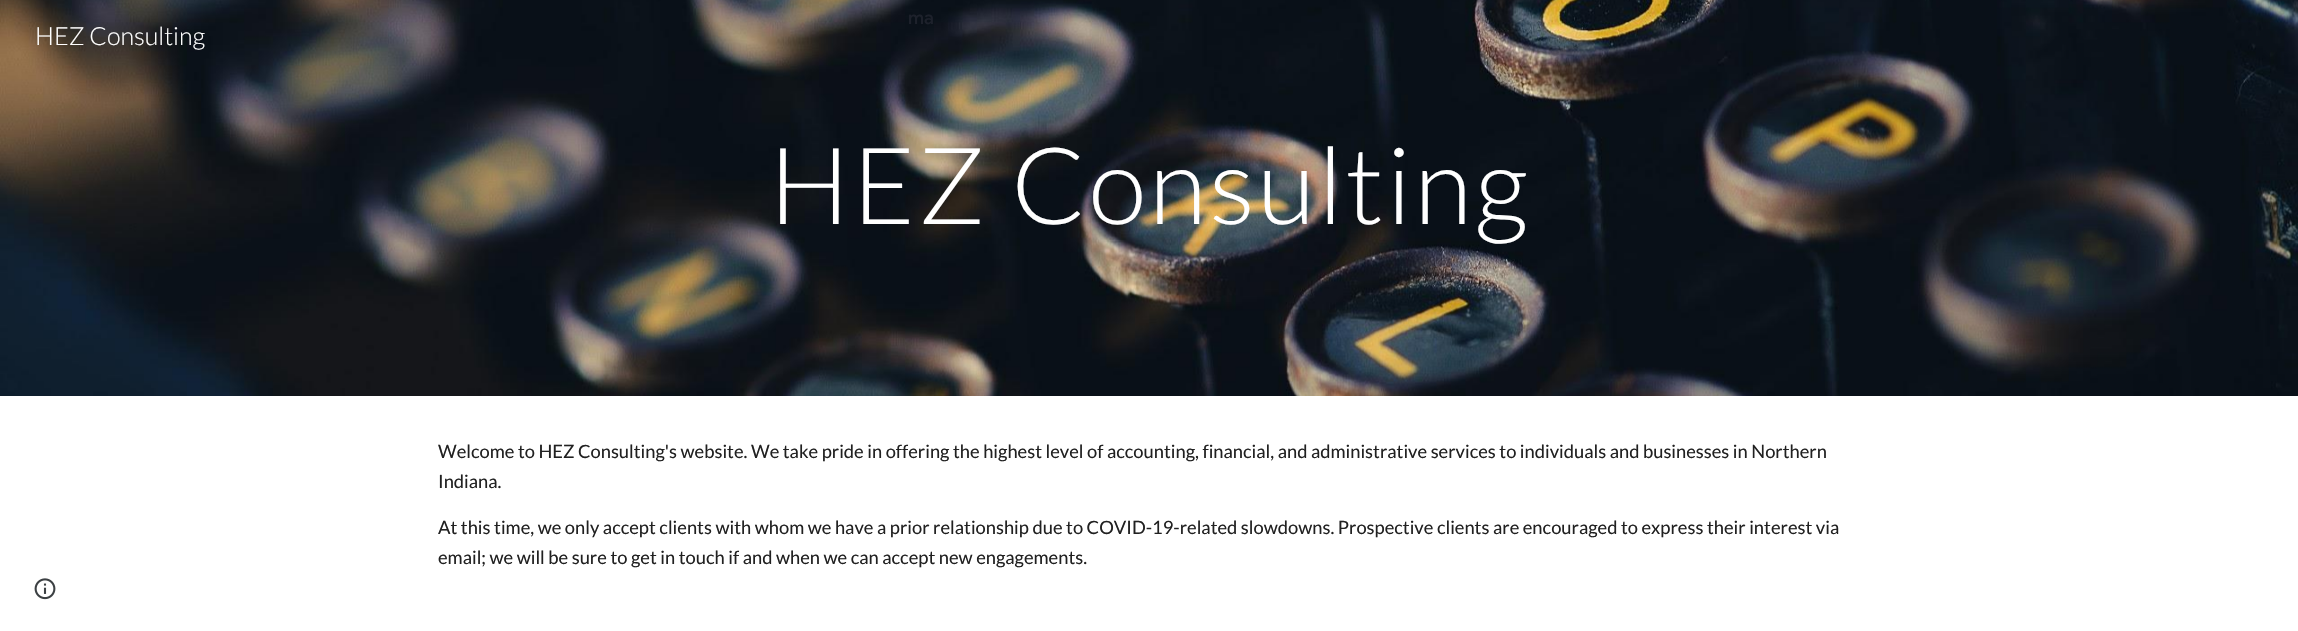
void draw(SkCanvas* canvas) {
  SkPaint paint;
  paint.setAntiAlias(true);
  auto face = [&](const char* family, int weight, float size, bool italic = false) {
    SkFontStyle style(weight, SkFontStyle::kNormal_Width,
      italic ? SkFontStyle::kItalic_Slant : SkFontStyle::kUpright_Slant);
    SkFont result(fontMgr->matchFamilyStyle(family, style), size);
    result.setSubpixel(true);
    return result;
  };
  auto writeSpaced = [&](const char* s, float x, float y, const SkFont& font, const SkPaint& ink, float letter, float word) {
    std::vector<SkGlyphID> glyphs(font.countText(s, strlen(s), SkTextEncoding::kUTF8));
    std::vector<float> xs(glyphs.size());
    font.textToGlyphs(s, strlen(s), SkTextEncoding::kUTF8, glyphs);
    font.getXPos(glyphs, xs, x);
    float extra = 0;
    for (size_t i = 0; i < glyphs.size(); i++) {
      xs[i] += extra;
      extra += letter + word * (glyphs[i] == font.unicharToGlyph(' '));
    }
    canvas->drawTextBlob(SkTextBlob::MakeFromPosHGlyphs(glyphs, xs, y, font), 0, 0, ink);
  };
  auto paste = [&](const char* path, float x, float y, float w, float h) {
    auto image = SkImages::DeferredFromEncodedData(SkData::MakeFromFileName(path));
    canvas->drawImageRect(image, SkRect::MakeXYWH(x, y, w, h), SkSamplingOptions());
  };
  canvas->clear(0xffffffff);
  paste("img/1.png", 0, 0, 2298, 396);
  paste("img/2.png", 34, 578, 22, 22);
  auto f0 = face("Google Sans", 500, 18);
  paint.setColor(0xff1d212b);
  canvas->drawString("ma", 908, 24, f0, paint);
  auto f1 = face("Lato", 300, 25);
  paint.setColor(0xffffffff);
  canvas->drawString("HEZ Consulting", 35, 45, f1, paint);
  auto f2 = face("Lato", 300, 106.75f);
  writeSpaced("HEZ Consulting", 769, 224, f2, paint, 2.5f, 0);
  auto f3 = face("Lato", 400, 18.33f);
  paint.setColor(0xff212121);
  {
    const struct { const char* s; float x, y; } items[] = {
      {"Welcome to HEZ Consulting's website. We take pride in offering the highest level of accounting, financial, and administrative services to individuals and businesses in Northern", 438, 458},
      {"Indiana.", 438, 488},
      {"At this time, we only accept clients with whom we have a prior relationship due to COVID-19-related slowdowns. Prospective clients are encouraged to express their interest via", 438, 534},
      {"email; we will be sure to get in touch if and when we can accept new engagements.", 438, 564},
    };
    for (auto [s, x, y] : items) {
      canvas->drawString(s, x, y, f3, paint);
    }
  }
}
